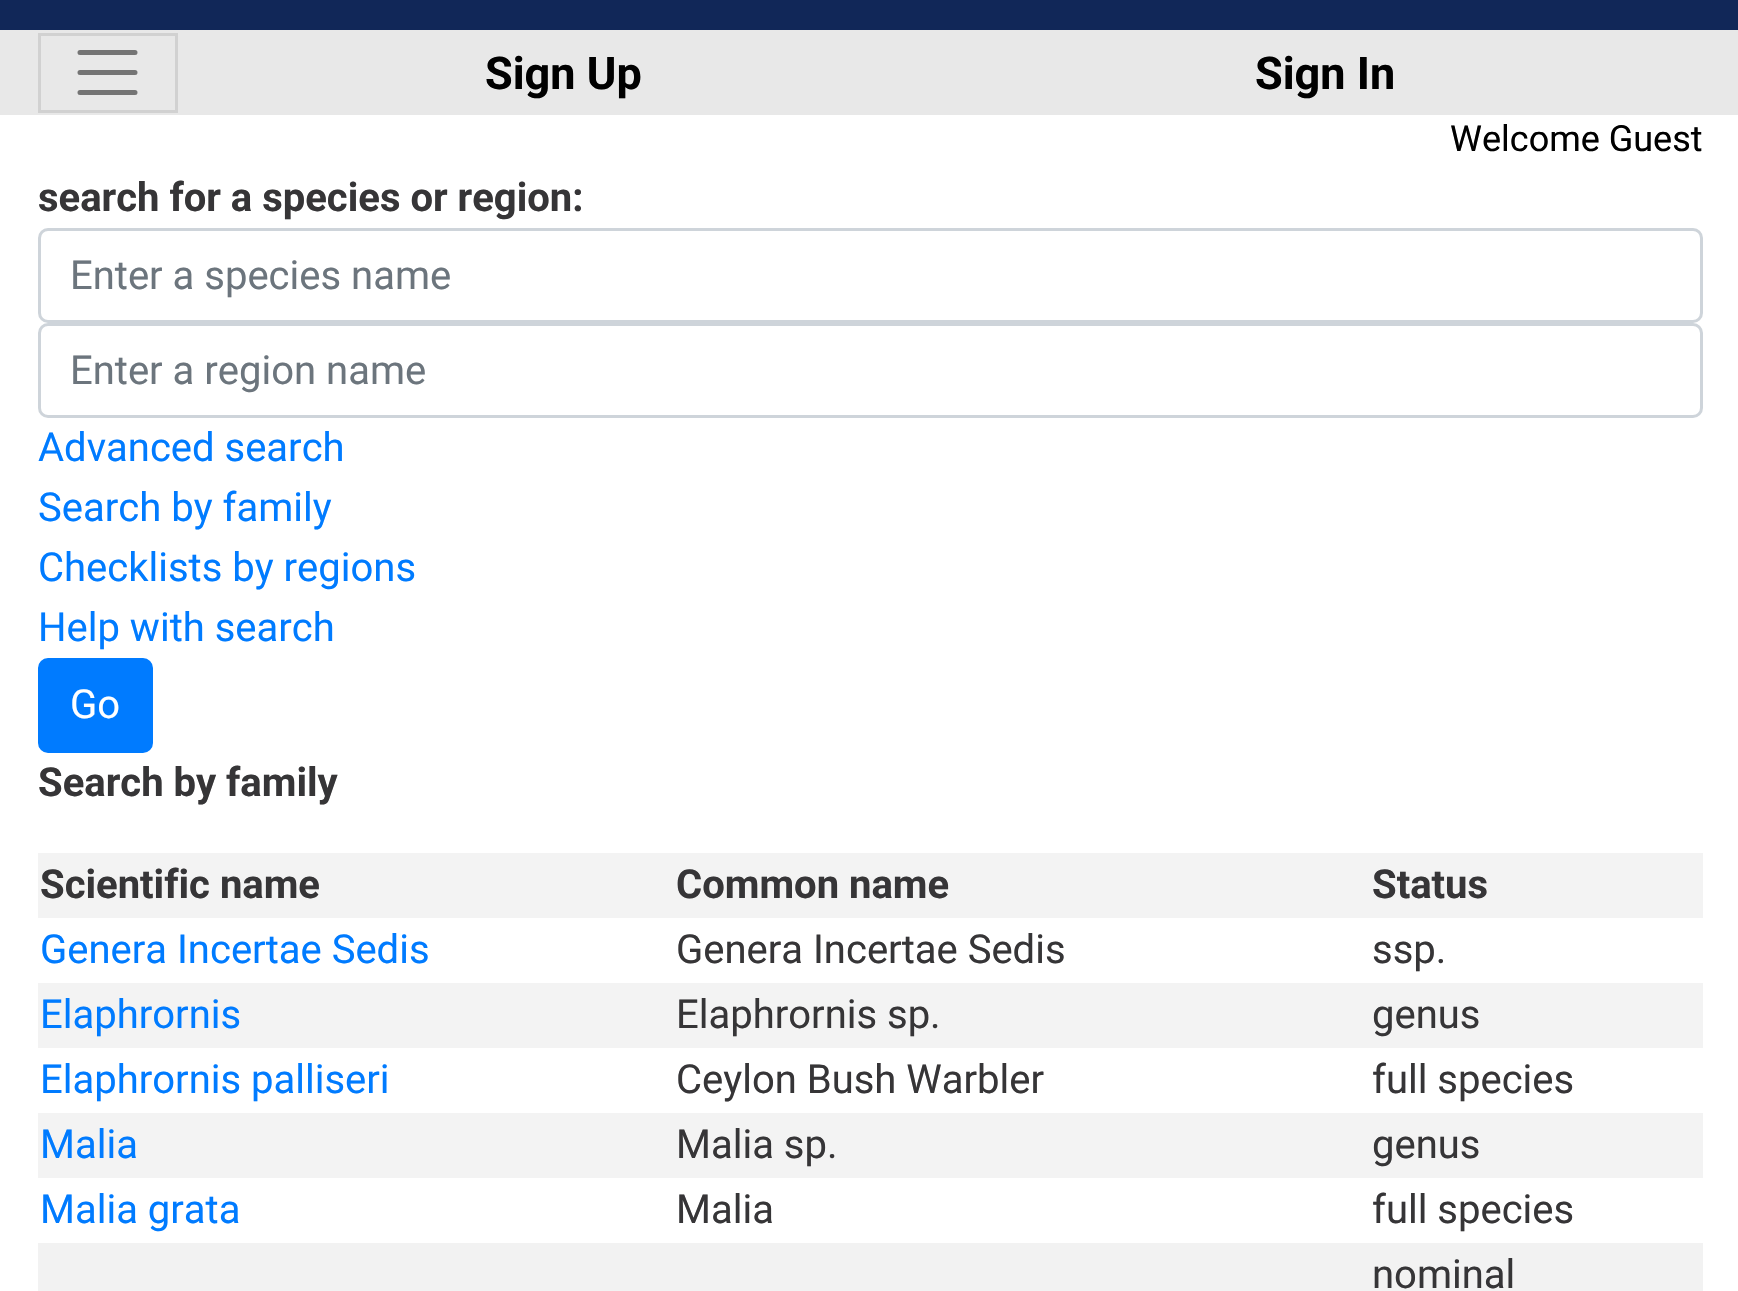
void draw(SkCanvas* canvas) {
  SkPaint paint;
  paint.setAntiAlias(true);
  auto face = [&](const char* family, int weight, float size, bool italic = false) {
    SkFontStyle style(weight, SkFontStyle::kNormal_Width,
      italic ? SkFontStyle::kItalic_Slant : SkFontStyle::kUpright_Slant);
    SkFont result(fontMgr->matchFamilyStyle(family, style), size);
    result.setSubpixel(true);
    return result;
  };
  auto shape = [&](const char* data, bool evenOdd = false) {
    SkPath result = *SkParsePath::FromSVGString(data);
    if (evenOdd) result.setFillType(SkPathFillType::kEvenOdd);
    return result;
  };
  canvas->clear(0xffffffff);
  paint.setColor(0xff112758);
  canvas->drawRect(SkRect::MakeXYWH(0, 0, 1738, 30), paint);
  paint.setColor(0xffe8e8e8);
  canvas->drawRect(SkRect::MakeXYWH(0, 30, 1738, 85), paint);
  paint.setStroke(true);
  paint.setStrokeWidth(3);
  paint.setColor(0xffd1d1d1);
  canvas->drawRect(SkRect::MakeXYWH(39.5f, 34.5f, 137, 77), paint);
  paint.setStrokeWidth(5);
  paint.setStrokeCap(SkPaint::kRound_Cap);
  paint.setColor(0xff747474);
  canvas->drawPath(shape("M80 52.5H135M80 72.5H135M80 92.5H135"), paint);
  paint.setStrokeWidth(3);
  paint.setStrokeCap(SkPaint::kButt_Cap);
  paint.setColor(0xffced4da);
  canvas->drawRoundRect(SkRect::MakeXYWH(39.5f, 229.5f, 1662, 92), 8.5f, 8.5f, paint);
  canvas->drawRoundRect(SkRect::MakeXYWH(39.5f, 324.5f, 1662, 92), 8.5f, 8.5f, paint);
  paint.setStroke(false);
  paint.setColor(0xff007bff);
  canvas->drawRoundRect(SkRect::MakeXYWH(39.5f, 659.5f, 112, 92), 8.5f, 8.5f, paint);
  paint.setStroke(true);
  canvas->drawRoundRect(SkRect::MakeXYWH(39.5f, 659.5f, 112, 92), 8.5f, 8.5f, paint);
  paint.setStroke(false);
  {
    const struct { float x, y, w, h; SkColor color; } items[] = {
      {38, 853, 1665, 65, 0xfff3f3f3},
      {38, 983, 1665, 65, 0xfff3f3f3},
      {38, 1113, 1665, 65, 0xfff3f3f3},
      {38, 1243, 1665, 48, 0xfff2f2f2},
    };
    for (auto [x, y, w, h, color] : items) {
      paint.setColor(color);
      canvas->drawRect(SkRect::MakeXYWH(x, y, w, h), paint);
    }
  }
  auto f0 = face("Roboto", 700, 45);
  paint.setColor(0xff000000);
  canvas->drawString("Sign Up", 485, 89, f0, paint);
  canvas->drawString("Sign In", 1255, 89, f0, paint);
  auto f1 = face("Roboto", 400, 36);
  canvas->drawString("Welcome Guest", 1450, 151, f1, paint);
  auto f2 = face("Roboto", 700, 40);
  paint.setColor(0xff363537);
  canvas->drawString("search for a species or region:", 38, 211, f2, paint);
  auto f3 = face("Roboto", 400, 40);
  paint.setColor(0xff6c757d);
  canvas->drawString("Enter a species name", 70, 289, f3, paint);
  canvas->drawString("Enter a region name", 70, 384, f3, paint);
  paint.setColor(0xff007bff);
  {
    const struct { const char* s; float x, y; } items[] = {
      {"Advanced search", 38, 461},
      {"Search by family", 38, 521},
      {"Checklists by regions", 38, 581},
      {"Help with search", 38, 641},
    };
    for (auto [s, x, y] : items) {
      canvas->drawString(s, x, y, f3, paint);
    }
  }
  paint.setColor(0xffffffff);
  canvas->drawString("Go", 70, 718, f3, paint);
  paint.setColor(0xff363537);
  {
    const struct { const char* s; float x, y; } items[] = {
      {"Search by family", 38, 796},
      {"Scientific name", 40, 898},
      {"Common name", 676, 898},
      {"Status", 1372, 898},
    };
    for (auto [s, x, y] : items) {
      canvas->drawString(s, x, y, f2, paint);
    }
  }
  paint.setColor(0xff007bff);
  canvas->drawString("Genera Incertae Sedis", 40, 963, f3, paint);
  paint.setColor(0xff363537);
  canvas->drawString("Genera Incertae Sedis", 676, 963, f3, paint);
  canvas->drawString("ssp.", 1372, 963, f3, paint);
  paint.setColor(0xff007bff);
  canvas->drawString("Elaphrornis", 40, 1028, f3, paint);
  paint.setColor(0xff363537);
  canvas->drawString("Elaphrornis sp.", 676, 1028, f3, paint);
  canvas->drawString("genus", 1372, 1028, f3, paint);
  paint.setColor(0xff007bff);
  canvas->drawString("Elaphrornis palliseri", 40, 1093, f3, paint);
  paint.setColor(0xff363537);
  canvas->drawString("Ceylon Bush Warbler", 676, 1093, f3, paint);
  canvas->drawString("full species", 1372, 1093, f3, paint);
  paint.setColor(0xff007bff);
  canvas->drawString("Malia", 40, 1158, f3, paint);
  paint.setColor(0xff363537);
  canvas->drawString("Malia sp.", 676, 1158, f3, paint);
  canvas->drawString("genus", 1372, 1158, f3, paint);
  paint.setColor(0xff007bff);
  canvas->drawString("Malia grata", 40, 1223, f3, paint);
  paint.setColor(0xff363537);
  {
    const struct { const char* s; float x, y; } items[] = {
      {"Malia", 676, 1223},
      {"full species", 1372, 1223},
      {"nominal", 1372, 1288},
    };
    for (auto [s, x, y] : items) {
      canvas->drawString(s, x, y, f3, paint);
    }
  }
}
